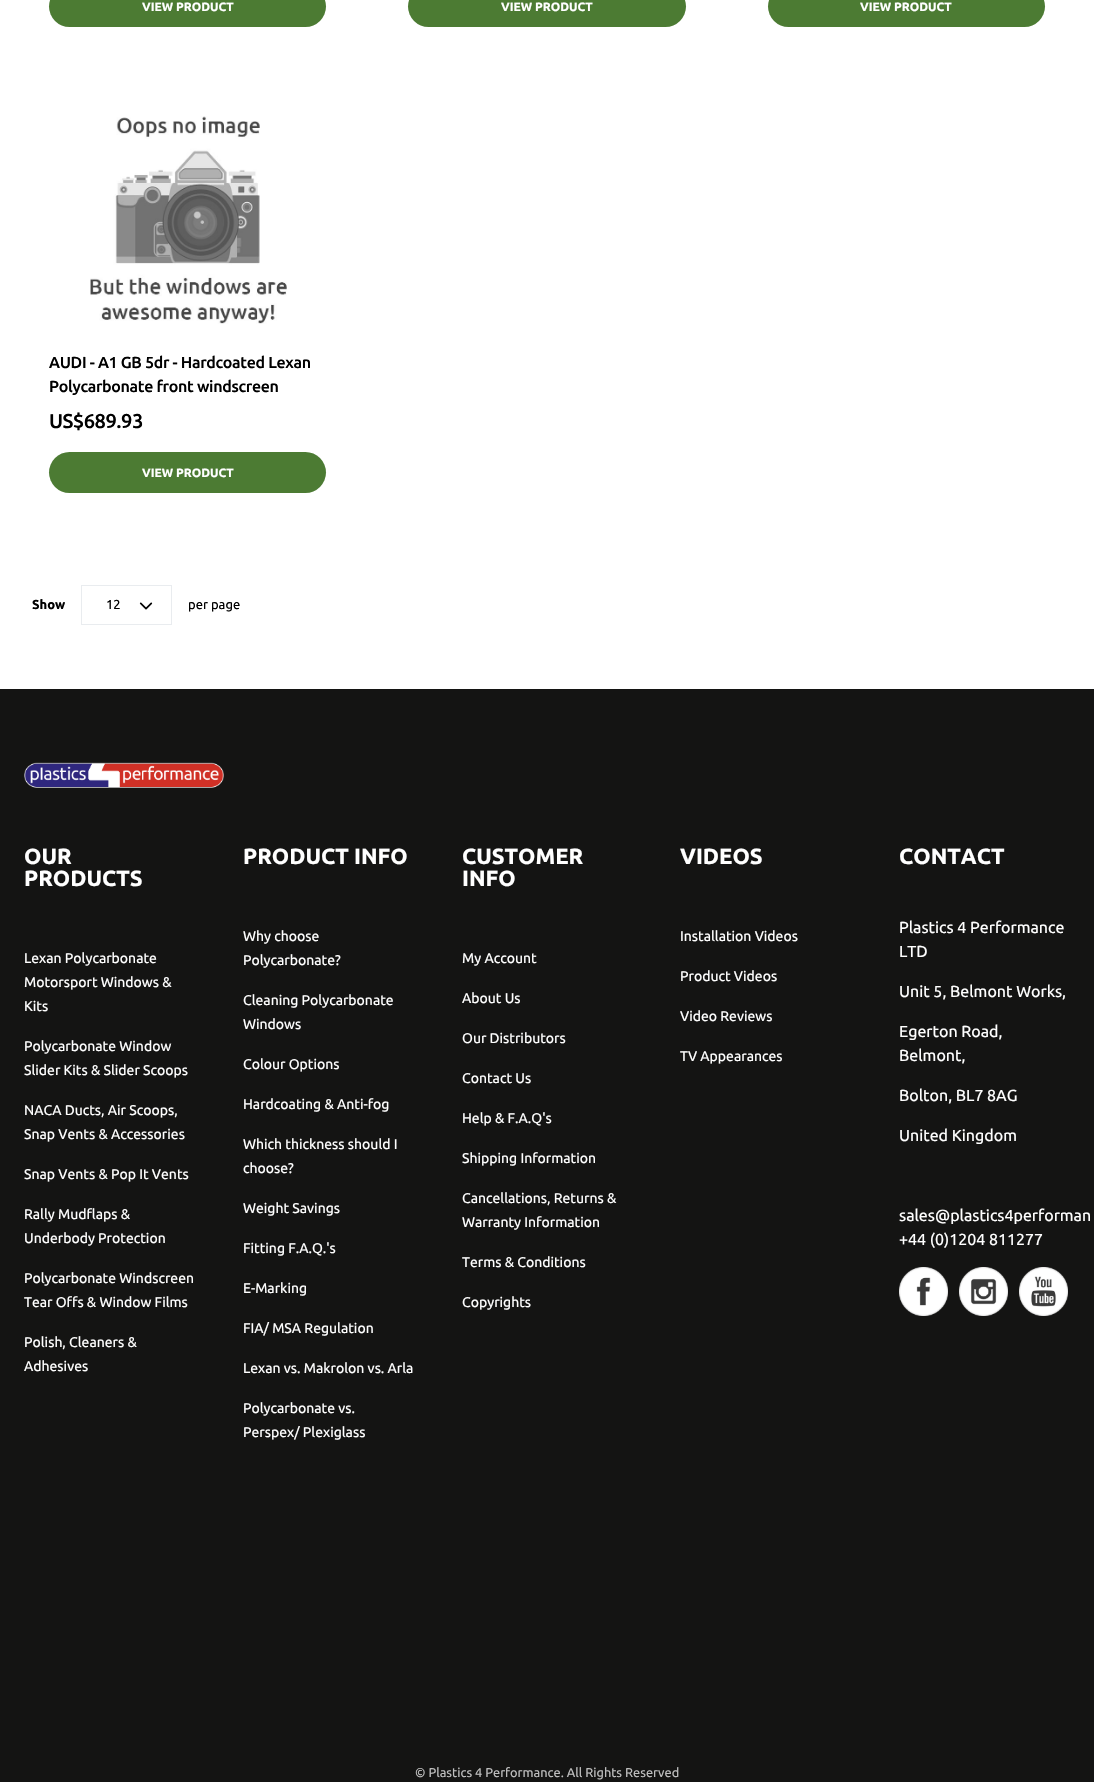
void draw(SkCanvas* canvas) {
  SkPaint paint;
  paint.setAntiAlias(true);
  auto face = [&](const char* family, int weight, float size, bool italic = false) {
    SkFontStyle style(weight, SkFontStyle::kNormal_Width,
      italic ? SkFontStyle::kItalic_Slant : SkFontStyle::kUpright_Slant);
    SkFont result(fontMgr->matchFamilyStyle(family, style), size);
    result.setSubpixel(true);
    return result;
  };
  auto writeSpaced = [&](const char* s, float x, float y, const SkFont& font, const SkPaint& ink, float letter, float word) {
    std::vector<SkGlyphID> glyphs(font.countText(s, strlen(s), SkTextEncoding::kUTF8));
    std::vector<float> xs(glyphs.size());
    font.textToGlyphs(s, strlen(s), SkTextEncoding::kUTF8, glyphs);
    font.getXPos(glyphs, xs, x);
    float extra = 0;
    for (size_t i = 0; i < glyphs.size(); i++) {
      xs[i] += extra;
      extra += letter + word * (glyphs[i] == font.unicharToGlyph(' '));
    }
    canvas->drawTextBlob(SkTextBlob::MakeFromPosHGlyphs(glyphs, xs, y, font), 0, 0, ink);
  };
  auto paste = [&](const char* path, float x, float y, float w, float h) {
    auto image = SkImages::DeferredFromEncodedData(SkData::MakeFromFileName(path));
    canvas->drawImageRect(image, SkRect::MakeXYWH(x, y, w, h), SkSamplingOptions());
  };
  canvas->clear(0xffffffff);
  paint.setColor(0xff4c7b33);
  canvas->drawRoundRect(SkRect::MakeXYWH(49, -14, 277, 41), 20.5f, 20.5f, paint);
  canvas->drawRoundRect(SkRect::MakeXYWH(408, -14, 278, 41), 20.5f, 20.5f, paint);
  canvas->drawRoundRect(SkRect::MakeXYWH(768, -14, 277, 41), 20.5f, 20.5f, paint);
  paste("img/1.png", 90, 116, 197, 208);
  canvas->drawRoundRect(SkRect::MakeXYWH(49, 452, 277, 41), 20.5f, 20.5f, paint);
  paste("img/2.png", 139, 602, 14, 8);
  paint.setStroke(true);
  paint.setStrokeWidth(1);
  paint.setColor(0xffe9ecef);
  canvas->drawRect(SkRect::MakeXYWH(81.5f, 585.5f, 90, 39), paint);
  paint.setStroke(false);
  paint.setColor(0xff141413);
  canvas->drawRect(SkRect::MakeXYWH(0, 689, 1094, 1066), paint);
  paste("img/3.png", 24, 762, 200, 26);
  paste("img/4.png", 899, 1267, 49, 49);
  paste("img/5.png", 959, 1267, 49, 49);
  paste("img/6.png", 1019, 1267, 49, 49);
  canvas->drawRect(SkRect::MakeXYWH(0, 1755, 1094, 27), paint);
  auto f0 = face("Ubuntu", 700, 12);
  paint.setColor(0xffffffff);
  {
    const struct { const char* s; float x, y; } items[] = {
      {"VIEW PRODUCT", 142, 11},
      {"VIEW PRODUCT", 501, 11},
      {"VIEW PRODUCT", 860, 11},
    };
    for (auto [s, x, y] : items) {
      canvas->drawString(s, x, y, f0, paint);
    }
  }
  auto f1 = face("Ubuntu", 500, 16);
  paint.setColor(0xff000000);
  writeSpaced("AUDI - A1 GB 5dr - Hardcoated Lexan", 49, 368, f1, paint, -0.3f, 0);
  writeSpaced("Polycarbonate front windscreen", 49, 392, f1, paint, -0.3f, 0);
  auto f2 = face("Ubuntu", 500, 20);
  writeSpaced("US$689.93", 49, 428, f2, paint, -0.5f, 0);
  paint.setColor(0xffffffff);
  canvas->drawString("VIEW PRODUCT", 142, 477, f0, paint);
  auto f3 = face("Ubuntu", 700, 13);
  paint.setColor(0xff000000);
  canvas->drawString("Show", 32, 609, f3, paint);
  auto f4 = face("Ubuntu", 400, 13);
  canvas->drawString("12", 106, 609, f4, paint);
  canvas->drawString("per page", 188, 609, f4, paint);
  auto f5 = face("Ubuntu", 700, 22);
  paint.setColor(0xffffffff);
  canvas->drawString("OUR", 24, 864, f5, paint);
  canvas->drawString("PRODUCTS", 24, 886, f5, paint);
  auto f6 = face("Ubuntu", 400, 14);
  {
    const struct { const char* s; float x, y; } items[] = {
      {"Lexan Polycarbonate", 24, 963},
      {"Motorsport Windows &", 24, 987},
      {"Kits", 24, 1011},
      {"Polycarbonate Window", 24, 1051},
      {"Slider Kits & Slider Scoops", 24, 1075},
      {"NACA Ducts, Air Scoops,", 24, 1115},
      {"Snap Vents & Accessories", 24, 1139},
      {"Snap Vents & Pop It Vents", 24, 1179},
      {"Rally Mudflaps &", 24, 1219},
      {"Underbody Protection", 24, 1243},
      {"Polycarbonate Windscreen", 24, 1283},
      {"Tear Offs & Window Films", 24, 1307},
      {"Polish, Cleaners &", 24, 1347},
      {"Adhesives", 24, 1371},
    };
    for (auto [s, x, y] : items) {
      canvas->drawString(s, x, y, f6, paint);
    }
  }
  canvas->drawString("PRODUCT INFO", 243, 864, f5, paint);
  {
    const struct { const char* s; float x, y; } items[] = {
      {"Why choose", 243, 941},
      {"Polycarbonate?", 243, 965},
      {"Cleaning Polycarbonate", 243, 1005},
      {"Windows", 243, 1029},
      {"Colour Options", 243, 1069},
      {"Hardcoating & Anti-fog", 243, 1109},
      {"Which thickness should I", 243, 1149},
      {"choose?", 243, 1173},
      {"Weight Savings", 243, 1213},
      {"Fitting F.A.Q.'s", 243, 1253},
      {"E-Marking", 243, 1293},
      {"FIA/ MSA Regulation", 243, 1333},
      {"Lexan vs. Makrolon vs. Arla", 243, 1373},
      {"Polycarbonate vs.", 243, 1413},
      {"Perspex/ Plexiglass", 243, 1437},
    };
    for (auto [s, x, y] : items) {
      canvas->drawString(s, x, y, f6, paint);
    }
  }
  canvas->drawString("CUSTOMER", 462, 864, f5, paint);
  canvas->drawString("INFO", 462, 886, f5, paint);
  {
    const struct { const char* s; float x, y; } items[] = {
      {"My Account", 462, 963},
      {"About Us", 462, 1003},
      {"Our Distributors", 462, 1043},
      {"Contact Us", 462, 1083},
      {"Help & F.A.Q's", 462, 1123},
      {"Shipping Information", 462, 1163},
      {"Cancellations, Returns &", 462, 1203},
      {"Warranty Information", 462, 1227},
      {"Terms & Conditions", 462, 1267},
      {"Copyrights", 462, 1307},
    };
    for (auto [s, x, y] : items) {
      canvas->drawString(s, x, y, f6, paint);
    }
  }
  canvas->drawString("VIDEOS", 680, 864, f5, paint);
  {
    const struct { const char* s; float x, y; } items[] = {
      {"Installation Videos", 680, 941},
      {"Product Videos", 680, 981},
      {"Video Reviews", 680, 1021},
      {"TV Appearances", 680, 1061},
    };
    for (auto [s, x, y] : items) {
      canvas->drawString(s, x, y, f6, paint);
    }
  }
  canvas->drawString("CONTACT", 899, 864, f5, paint);
  auto f7 = face("Ubuntu", 400, 16);
  {
    const struct { const char* s; float x, y; } items[] = {
      {"Plastics 4 Performance", 899, 933},
      {"LTD", 899, 957},
      {"Unit 5, Belmont Works,", 899, 997},
      {"Egerton Road,", 899, 1037},
      {"Belmont,", 899, 1061},
      {"Bolton, BL7 8AG", 899, 1101},
      {"United Kingdom", 899, 1141},
      {"sales@plastics4performan", 899, 1221},
      {"+44 (0)1204 811277", 899, 1245},
    };
    for (auto [s, x, y] : items) {
      canvas->drawString(s, x, y, f7, paint);
    }
  }
  auto f8 = face("Ubuntu", 400, 12.8f);
  paint.setColor(0xffbebebe);
  canvas->drawString("© Plastics 4 Performance. All Rights Reserved", 415, 1777, f8, paint);
}
